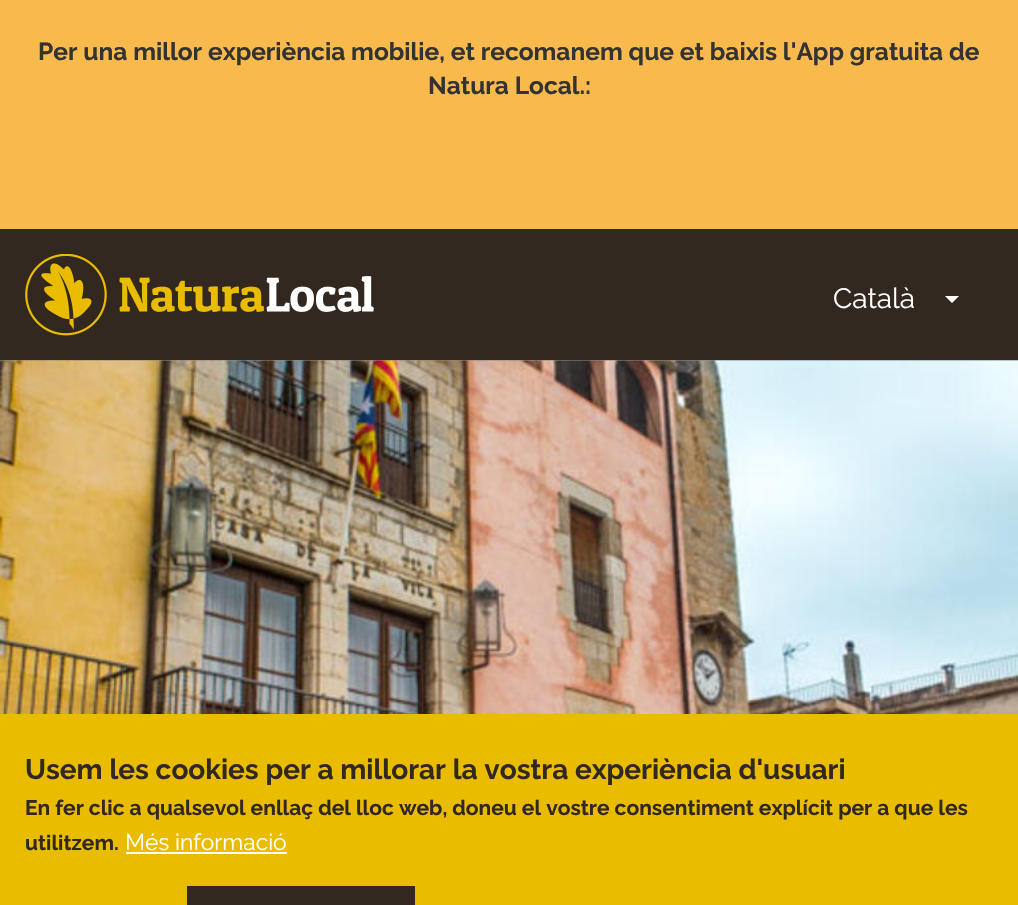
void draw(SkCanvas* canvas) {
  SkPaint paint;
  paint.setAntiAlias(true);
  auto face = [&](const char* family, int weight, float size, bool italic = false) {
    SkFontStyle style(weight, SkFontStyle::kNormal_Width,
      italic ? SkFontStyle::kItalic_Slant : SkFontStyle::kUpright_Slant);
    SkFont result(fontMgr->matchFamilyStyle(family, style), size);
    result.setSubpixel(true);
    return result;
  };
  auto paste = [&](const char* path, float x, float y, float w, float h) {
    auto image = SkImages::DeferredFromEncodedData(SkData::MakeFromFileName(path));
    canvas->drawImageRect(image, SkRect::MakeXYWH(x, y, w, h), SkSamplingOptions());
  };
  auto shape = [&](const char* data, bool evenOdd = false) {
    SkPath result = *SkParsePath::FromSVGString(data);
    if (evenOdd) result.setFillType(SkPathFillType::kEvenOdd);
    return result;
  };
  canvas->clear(0xfff9ba4d);
  paint.setColor(0xff322820);
  canvas->drawRect(SkRect::MakeXYWH(0, 229, 1018, 132), paint);
  paste("img/1.png", 25, 254, 349, 82);
  paint.setColor(0xffffffff);
  canvas->drawPath(shape("M945 296H959L952 303Z"), paint);
  paste("img/2.png", 0, 360, 1018, 1);
  paste("img/3.png", 0, 360, 1018, 354);
  {
    const struct { float x, y, w, h; SkColor color; } items[] = {
      {0, 714, 1018, 191, 0xffe9bc00},
      {126, 852, 161, 2, 0xffffffff},
      {187, 886, 228, 19, 0xff322820},
    };
    for (auto [x, y, w, h, color] : items) {
      paint.setColor(color);
      canvas->drawRect(SkRect::MakeXYWH(x, y, w, h), paint);
    }
  }
  auto f0 = face("Raleway", 700, 24.5f);
  paint.setColor(0xff333333);
  canvas->drawString("Per una millor experiència mobilie, et recomanem que et baixis l'App gratuita de", 38, 60, f0, paint);
  canvas->drawString("Natura Local.:", 428, 94, f0, paint);
  auto f1 = face("Raleway", 400, 28);
  paint.setColor(0xffffffff);
  canvas->drawString("Català", 833, 308, f1, paint);
  auto f2 = face("Raleway", 700, 28);
  paint.setColor(0xff322820);
  canvas->drawString("Usem les cookies per a millorar la vostra experiència d'usuari", 25, 779, f2, paint);
  auto f3 = face("Raleway", 700, 21);
  canvas->drawString("En fer clic a qualsevol enllaç del lloc web, doneu el vostre consentiment explícit per a que les", 25, 815, f3, paint);
  canvas->drawString("utilitzem.", 25, 850, f3, paint);
  auto f4 = face("Raleway", 400, 22.75f);
  paint.setColor(0xffffffff);
  canvas->drawString("Més informació", 125, 850, f4, paint);
}
